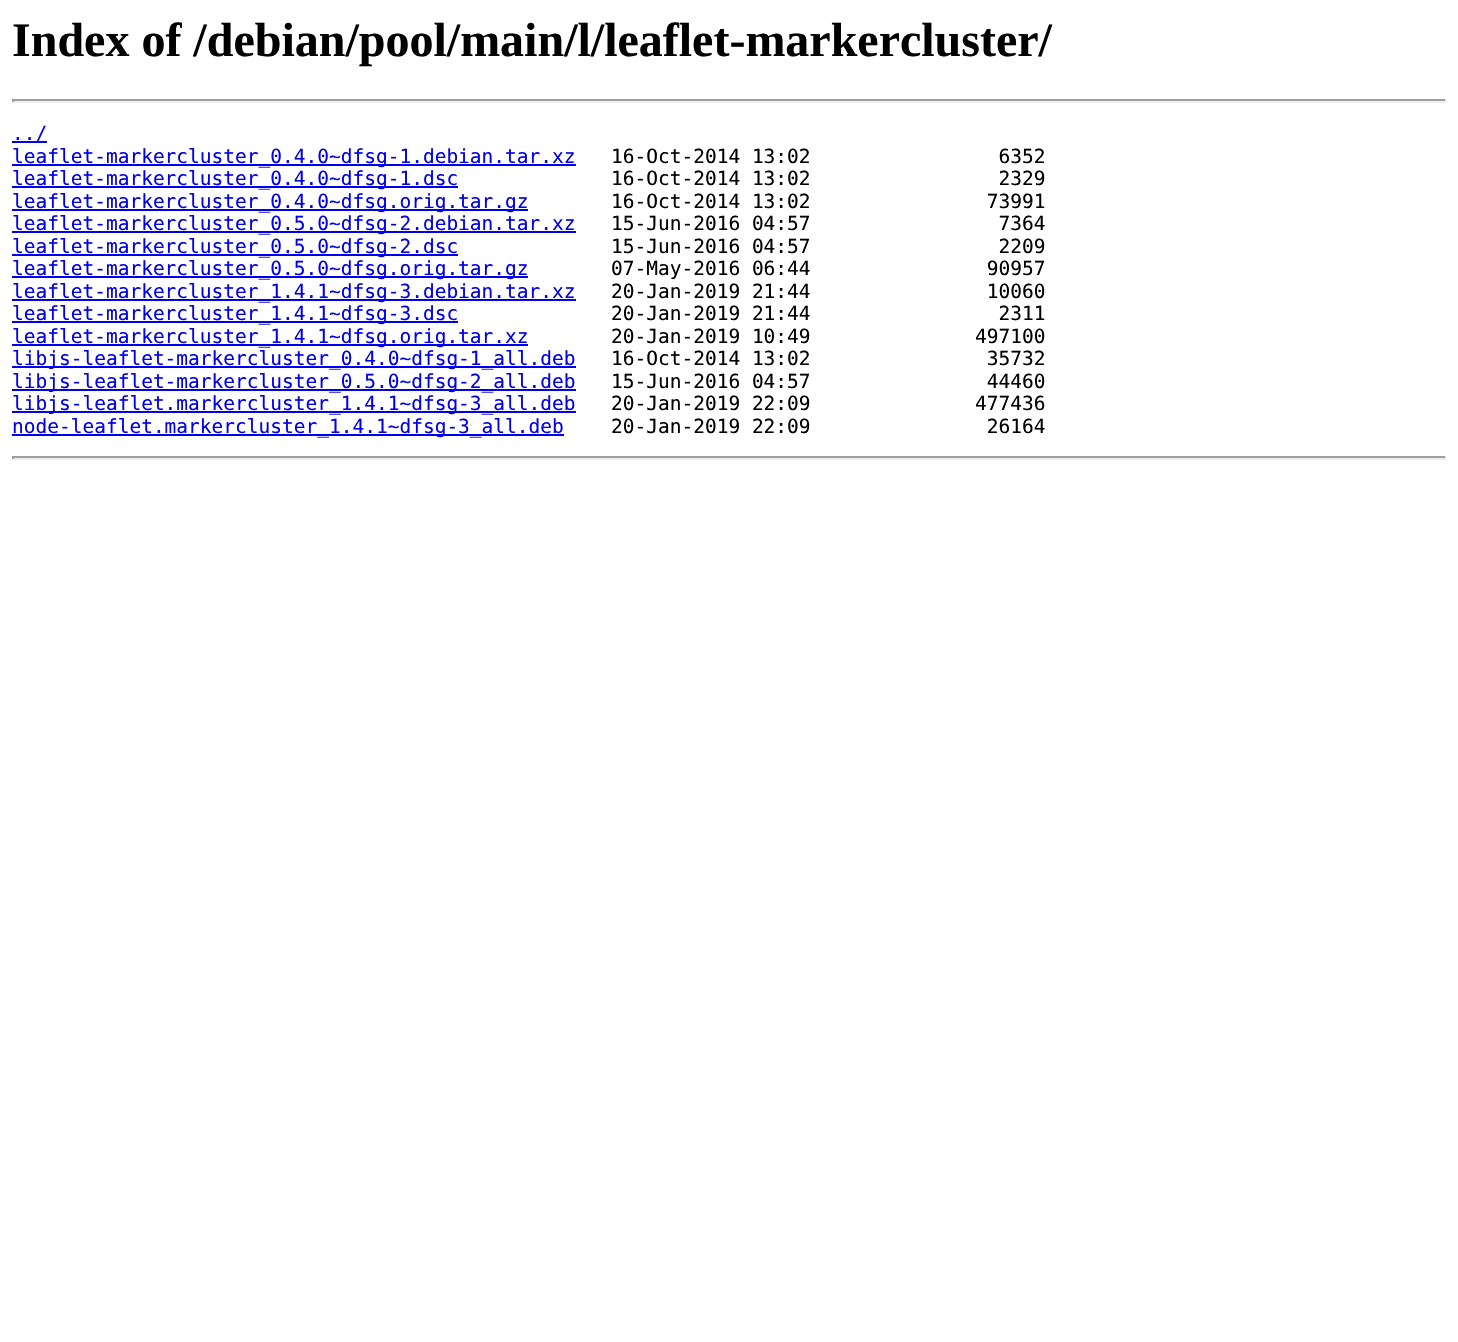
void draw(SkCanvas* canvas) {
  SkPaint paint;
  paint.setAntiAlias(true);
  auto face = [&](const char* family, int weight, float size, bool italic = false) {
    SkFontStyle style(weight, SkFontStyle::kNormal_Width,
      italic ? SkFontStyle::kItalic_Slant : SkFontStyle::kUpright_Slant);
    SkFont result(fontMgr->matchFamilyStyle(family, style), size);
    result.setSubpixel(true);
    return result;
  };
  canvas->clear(0xffffffff);
  {
    const struct { float x, y, w, h; SkColor color; } items[] = {
      {12, 99, 1434, 2, 0xff9f9f9f},
      {1445, 99, 2, 3, 0xffeeeeee},
      {12, 101, 1434, 2, 0xffeeeeee},
      {12, 99, 2, 3, 0xff9f9f9f},
      {12, 141, 35, 2, 0xff0000ee},
      {12, 164, 564, 2, 0xff0000ee},
      {12, 186, 446, 2, 0xff0000ee},
      {12, 209, 516, 2, 0xff0000ee},
      {12, 231, 564, 2, 0xff0000ee},
      {12, 254, 446, 2, 0xff0000ee},
      {12, 276, 516, 2, 0xff0000ee},
      {12, 299, 564, 2, 0xff0000ee},
      {12, 321, 446, 2, 0xff0000ee},
      {12, 344, 516, 2, 0xff0000ee},
      {12, 366, 564, 2, 0xff0000ee},
      {12, 389, 564, 2, 0xff0000ee},
      {12, 411, 564, 2, 0xff0000ee},
      {12, 434, 552, 2, 0xff0000ee},
      {12, 456, 1434, 2, 0xff9f9f9f},
      {1445, 456, 2, 3, 0xffeeeeee},
      {12, 458, 1434, 2, 0xffeeeeee},
      {12, 456, 2, 3, 0xff9f9f9f},
    };
    for (auto [x, y, w, h, color] : items) {
      paint.setColor(color);
      canvas->drawRect(SkRect::MakeXYWH(x, y, w, h), paint);
    }
  }
  auto f0 = face("Liberation Serif", 700, 48);
  paint.setColor(0xff000000);
  canvas->drawString("Index of /debian/pool/main/l/leaflet-markercluster/", 12, 56, f0, paint);
  auto f1 = face("DejaVu Sans Mono", 400, 19.5f);
  paint.setColor(0xff0000ee);
  canvas->drawString("../", 12, 140, f1, paint);
  canvas->drawString("leaflet-markercluster_0.4.0~dfsg-1.debian.tar.xz", 12, 163, f1, paint);
  paint.setColor(0xff000000);
  canvas->drawString("16-Oct-2014 13:02                6352", 611, 163, f1, paint);
  paint.setColor(0xff0000ee);
  canvas->drawString("leaflet-markercluster_0.4.0~dfsg-1.dsc", 12, 185, f1, paint);
  paint.setColor(0xff000000);
  canvas->drawString("16-Oct-2014 13:02                2329", 611, 185, f1, paint);
  paint.setColor(0xff0000ee);
  canvas->drawString("leaflet-markercluster_0.4.0~dfsg.orig.tar.gz", 12, 208, f1, paint);
  paint.setColor(0xff000000);
  canvas->drawString("16-Oct-2014 13:02               73991", 611, 208, f1, paint);
  paint.setColor(0xff0000ee);
  canvas->drawString("leaflet-markercluster_0.5.0~dfsg-2.debian.tar.xz", 12, 230, f1, paint);
  paint.setColor(0xff000000);
  canvas->drawString("15-Jun-2016 04:57                7364", 611, 230, f1, paint);
  paint.setColor(0xff0000ee);
  canvas->drawString("leaflet-markercluster_0.5.0~dfsg-2.dsc", 12, 253, f1, paint);
  paint.setColor(0xff000000);
  canvas->drawString("15-Jun-2016 04:57                2209", 611, 253, f1, paint);
  paint.setColor(0xff0000ee);
  canvas->drawString("leaflet-markercluster_0.5.0~dfsg.orig.tar.gz", 12, 275, f1, paint);
  paint.setColor(0xff000000);
  canvas->drawString("07-May-2016 06:44               90957", 611, 275, f1, paint);
  paint.setColor(0xff0000ee);
  canvas->drawString("leaflet-markercluster_1.4.1~dfsg-3.debian.tar.xz", 12, 298, f1, paint);
  paint.setColor(0xff000000);
  canvas->drawString("20-Jan-2019 21:44               10060", 611, 298, f1, paint);
  paint.setColor(0xff0000ee);
  canvas->drawString("leaflet-markercluster_1.4.1~dfsg-3.dsc", 12, 320, f1, paint);
  paint.setColor(0xff000000);
  canvas->drawString("20-Jan-2019 21:44                2311", 611, 320, f1, paint);
  paint.setColor(0xff0000ee);
  canvas->drawString("leaflet-markercluster_1.4.1~dfsg.orig.tar.xz", 12, 343, f1, paint);
  paint.setColor(0xff000000);
  canvas->drawString("20-Jan-2019 10:49              497100", 611, 343, f1, paint);
  paint.setColor(0xff0000ee);
  canvas->drawString("libjs-leaflet-markercluster_0.4.0~dfsg-1_all.deb", 12, 365, f1, paint);
  paint.setColor(0xff000000);
  canvas->drawString("16-Oct-2014 13:02               35732", 611, 365, f1, paint);
  paint.setColor(0xff0000ee);
  canvas->drawString("libjs-leaflet-markercluster_0.5.0~dfsg-2_all.deb", 12, 388, f1, paint);
  paint.setColor(0xff000000);
  canvas->drawString("15-Jun-2016 04:57               44460", 611, 388, f1, paint);
  paint.setColor(0xff0000ee);
  canvas->drawString("libjs-leaflet.markercluster_1.4.1~dfsg-3_all.deb", 12, 410, f1, paint);
  paint.setColor(0xff000000);
  canvas->drawString("20-Jan-2019 22:09              477436", 611, 410, f1, paint);
  paint.setColor(0xff0000ee);
  canvas->drawString("node-leaflet.markercluster_1.4.1~dfsg-3_all.deb", 12, 433, f1, paint);
  paint.setColor(0xff000000);
  canvas->drawString("20-Jan-2019 22:09               26164", 611, 433, f1, paint);
}
